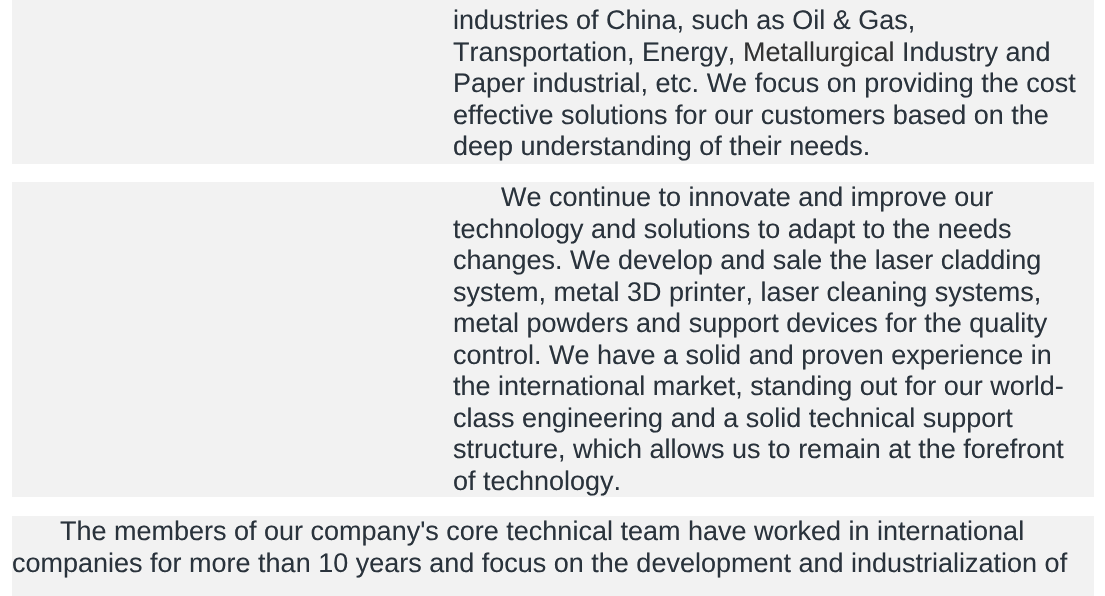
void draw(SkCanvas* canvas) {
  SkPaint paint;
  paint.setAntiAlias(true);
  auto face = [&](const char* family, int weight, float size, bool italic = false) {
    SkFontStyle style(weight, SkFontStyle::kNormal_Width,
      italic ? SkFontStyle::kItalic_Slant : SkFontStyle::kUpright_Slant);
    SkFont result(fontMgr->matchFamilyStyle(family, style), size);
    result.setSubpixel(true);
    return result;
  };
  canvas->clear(0xffffffff);
  {
    const struct { float x, y, w, h; SkColor color; } items[] = {
      {12, 0, 1082, 164, 0xfff2f2f2},
      {12, 182, 1082, 315, 0xfff2f2f2},
      {12, 516, 1082, 80, 0xfff2f2f2},
    };
    for (auto [x, y, w, h, color] : items) {
      paint.setColor(color);
      canvas->drawRect(SkRect::MakeXYWH(x, y, w, h), paint);
    }
  }
  auto f0 = face("Liberation Sans", 400, 27);
  paint.setColor(0xff2a333c);
  canvas->drawString("industries of China, such as Oil & Gas,", 453, 29, f0, paint);
  canvas->drawString("Transportation, Energy,", 453, 61, f0, paint);
  paint.setColor(0xff333333);
  canvas->drawString("Metallurgical", 743, 61, f0, paint);
  paint.setColor(0xff2a333c);
  {
    const struct { const char* s; float x, y; } items[] = {
      {"Industry and", 902, 61},
      {"Paper industrial, etc. We focus on providing the cost", 453, 92},
      {"effective solutions for our customers based on the", 453, 124},
      {"deep understanding of their needs.", 453, 155},
      {"We continue to innovate and improve our", 501, 206},
      {"technology and solutions to adapt to the needs", 453, 238},
      {"changes. We develop and sale the laser cladding", 453, 269},
      {"system, metal 3D printer, laser cleaning systems,", 453, 301},
      {"metal powders and support devices for the quality", 453, 332},
      {"control. We have a solid and proven experience in", 453, 364},
      {"the international market, standing out for our world-", 453, 395},
      {"class engineering and a solid technical support", 453, 427},
      {"structure, which allows us to remain at the forefront", 453, 458},
      {"of technology.", 453, 490},
      {"The members of our company's core technical team have worked in international", 60, 540},
      {"companies for more than 10 years and focus on the development and industrialization of", 12, 572},
    };
    for (auto [s, x, y] : items) {
      canvas->drawString(s, x, y, f0, paint);
    }
  }
}
